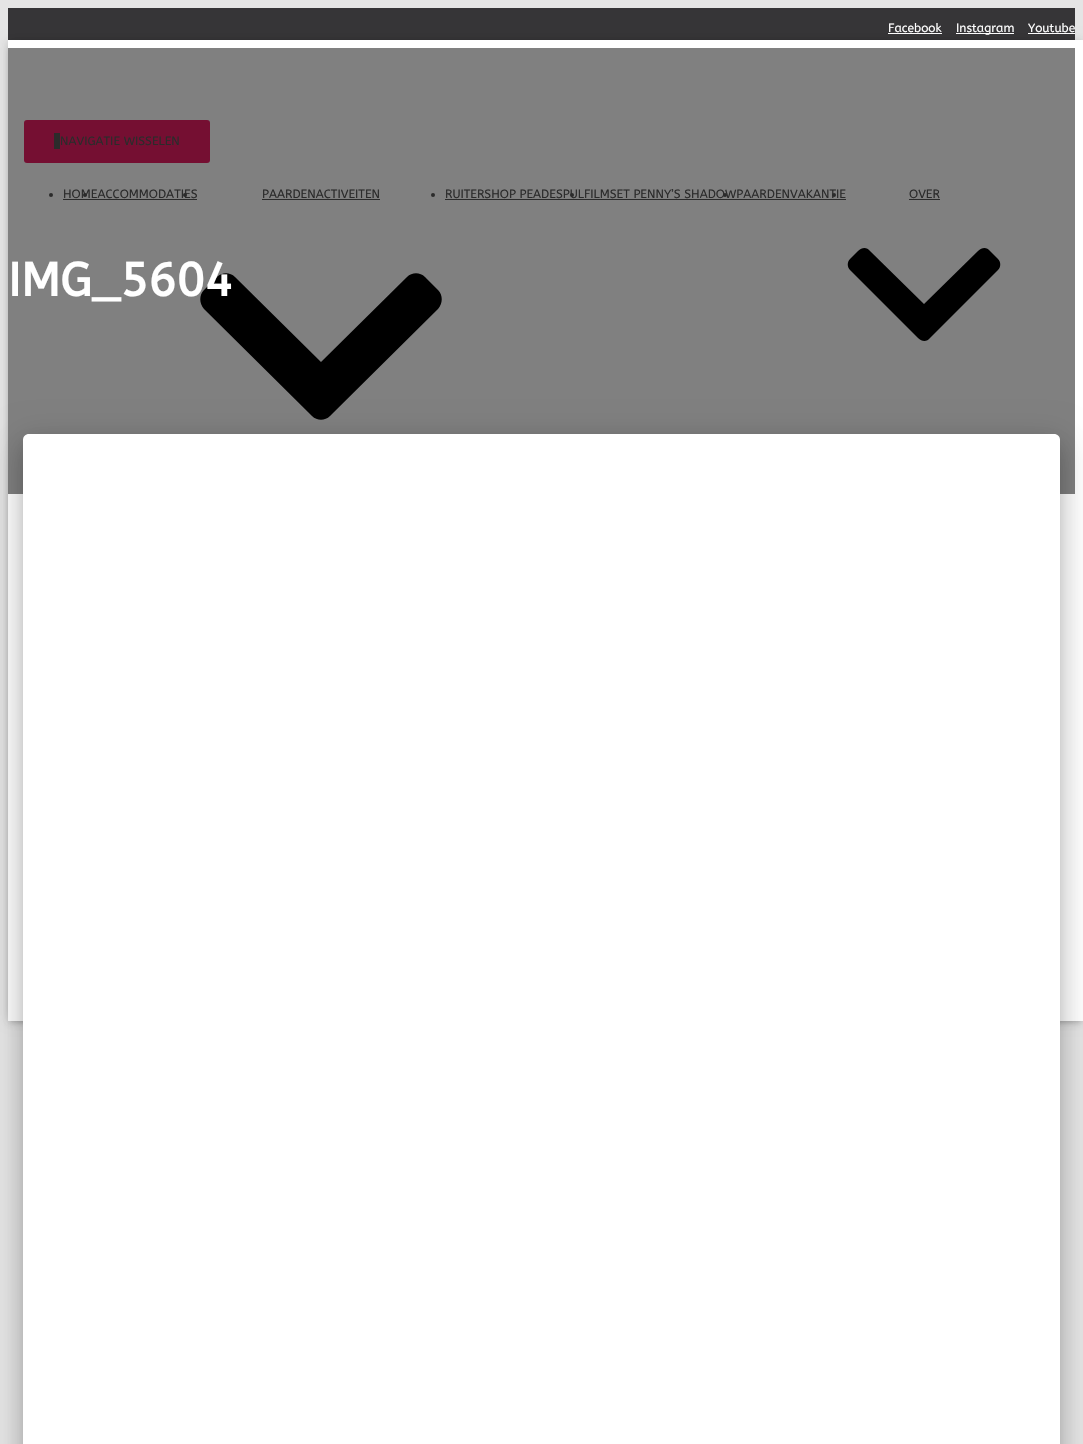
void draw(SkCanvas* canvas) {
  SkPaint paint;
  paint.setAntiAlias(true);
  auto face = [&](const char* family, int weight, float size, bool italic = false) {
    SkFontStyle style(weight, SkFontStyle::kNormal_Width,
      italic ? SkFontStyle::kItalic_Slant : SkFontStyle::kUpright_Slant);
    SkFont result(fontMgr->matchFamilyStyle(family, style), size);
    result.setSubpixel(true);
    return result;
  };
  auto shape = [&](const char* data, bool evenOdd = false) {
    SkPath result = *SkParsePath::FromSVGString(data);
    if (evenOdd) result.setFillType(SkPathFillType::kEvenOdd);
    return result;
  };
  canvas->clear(0xffe5e5e5);
  {
    const struct { float x, y, w, h; SkColor color; } items[] = {
      {8, 8, 1067, 32, 0xff363537},
      {888, 33, 54, 1, 0xffffffff},
      {956, 33, 58, 1, 0xffffffff},
      {1028, 33, 47, 1, 0xffffffff},
    };
    for (auto [x, y, w, h, color] : items) {
      paint.setColor(color);
      canvas->drawRect(SkRect::MakeXYWH(x, y, w, h), paint);
    }
  }
  paint.setColor(0x1a000000);
  paint.setMaskFilter(SkMaskFilter::MakeBlur(kNormal_SkBlurStyle, 2.5f));
  canvas->drawRect(SkRect::MakeXYWH(10, 46, 1071, 977), paint);
  paint.setMaskFilter(nullptr);
  paint.setColor(0x1f000000);
  paint.setMaskFilter(SkMaskFilter::MakeBlur(kNormal_SkBlurStyle, 5));
  canvas->drawRect(SkRect::MakeXYWH(8, 41, 1075, 981), paint);
  paint.setMaskFilter(nullptr);
  paint.setColor(0x6b000000);
  paint.setMaskFilter(SkMaskFilter::MakeBlur(kNormal_SkBlurStyle, 5));
  canvas->drawRect(SkRect::MakeXYWH(14, 47, 1063, 969), paint);
  paint.setMaskFilter(nullptr);
  paint.setColor(0xffffffff);
  canvas->drawRect(SkRect::MakeXYWH(8, 40, 1075, 981), paint);
  paint.setColor(0xff808080);
  canvas->drawRect(SkRect::MakeXYWH(8, 48, 1067, 446), paint);
  paint.setColor(0xff750f32);
  canvas->drawRoundRect(SkRect::MakeXYWH(24, 120, 186, 43), 3, 3, paint);
  paint.setColor(0xff2b2b2b);
  canvas->drawRect(SkRect::MakeXYWH(54, 133, 6, 16), paint);
  canvas->drawCircle(51, 195, 2, paint);
  canvas->drawRect(SkRect::MakeXYWH(63, 199, 134, 1), paint);
  canvas->drawCircle(185, 195, 2, paint);
  canvas->drawRect(SkRect::MakeXYWH(262, 199, 118, 1), paint);
  paint.setColor(0xff000000);
  canvas->drawPath(shape("M312 416L204 309C199 303 199 295 204 290L217 277C222 272 230 272 235 277L321 362L407 277C412 272 420 272 425 277L438 290C443 295 443 303 438 309L330 416C325 421 317 421 312 416Z"), paint);
  paint.setColor(0xff2b2b2b);
  canvas->drawCircle(433, 195, 2, paint);
  canvas->drawRect(SkRect::MakeXYWH(445, 199, 401, 1), paint);
  canvas->drawCircle(834, 195, 2, paint);
  canvas->drawRect(SkRect::MakeXYWH(909, 199, 31, 1), paint);
  paint.setColor(0xff000000);
  canvas->drawPath(shape("M918 338L850 270C847 267 847 262 850 259L858 251C862 247 867 247 870 251L924 304L978 251C982 247 987 247 990 251L998 259C1001 262 1001 267 998 270L930 338C927 342 922 342 918 338Z"), paint);
  paint.setColor(0xff2b2b2b);
  canvas->drawCircle(85, 195, 2, paint);
  canvas->drawCircle(572, 195, 2, paint);
  canvas->drawCircle(725, 195, 2, paint);
  paint.setColor(0x33000000);
  paint.setMaskFilter(SkMaskFilter::MakeBlur(kNormal_SkBlurStyle, 5));
  canvas->drawRoundRect(SkRect::MakeXYWH(28, 447, 1027, 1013), 1, 1, paint);
  paint.setMaskFilter(nullptr);
  paint.setColor(0x1f000000);
  paint.setMaskFilter(SkMaskFilter::MakeBlur(kNormal_SkBlurStyle, 15));
  canvas->drawRoundRect(SkRect::MakeXYWH(18, 435, 1047, 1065), 11, 11, paint);
  paint.setMaskFilter(nullptr);
  paint.setColor(0x24000000);
  paint.setMaskFilter(SkMaskFilter::MakeBlur(kNormal_SkBlurStyle, 12));
  canvas->drawRoundRect(SkRect::MakeXYWH(21, 448, 1041, 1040), 8, 8, paint);
  paint.setMaskFilter(nullptr);
  paint.setColor(0xffffffff);
  canvas->drawPath(shape("M29 434H1054C1057.5 434 1060 436.5 1060 440V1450H23V440C23 436.5 25.5 434 29 434Z"), paint);
  auto f0 = face("ABeeZee", 400, 12);
  {
    const struct { const char* s; float x, y; } items[] = {
      {"Facebook", 888, 32},
      {"Instagram", 956, 32},
      {"Youtube", 1028, 32},
    };
    for (auto [s, x, y] : items) {
      canvas->drawString(s, x, y, f0, paint);
    }
  }
  paint.setColor(0xff2b2b2b);
  {
    const struct { const char* s; float x, y; } items[] = {
      {"NAVIGATIE WISSELEN", 60, 145},
      {"HOMEACCOMMODATIES", 63, 198},
      {"PAARDENACTIVEITEN", 262, 198},
      {"RUITERSHOP PEADESPULFILMSET PENNY’S SHADOWPAARDENVAKANTIE", 445, 198},
      {"OVER", 909, 198},
    };
    for (auto [s, x, y] : items) {
      canvas->drawString(s, x, y, f0, paint);
    }
  }
  auto f1 = face("ABeeZee", 700, 47);
  paint.setColor(0xffffffff);
  canvas->drawString("IMG_5604", 8, 296, f1, paint);
}
